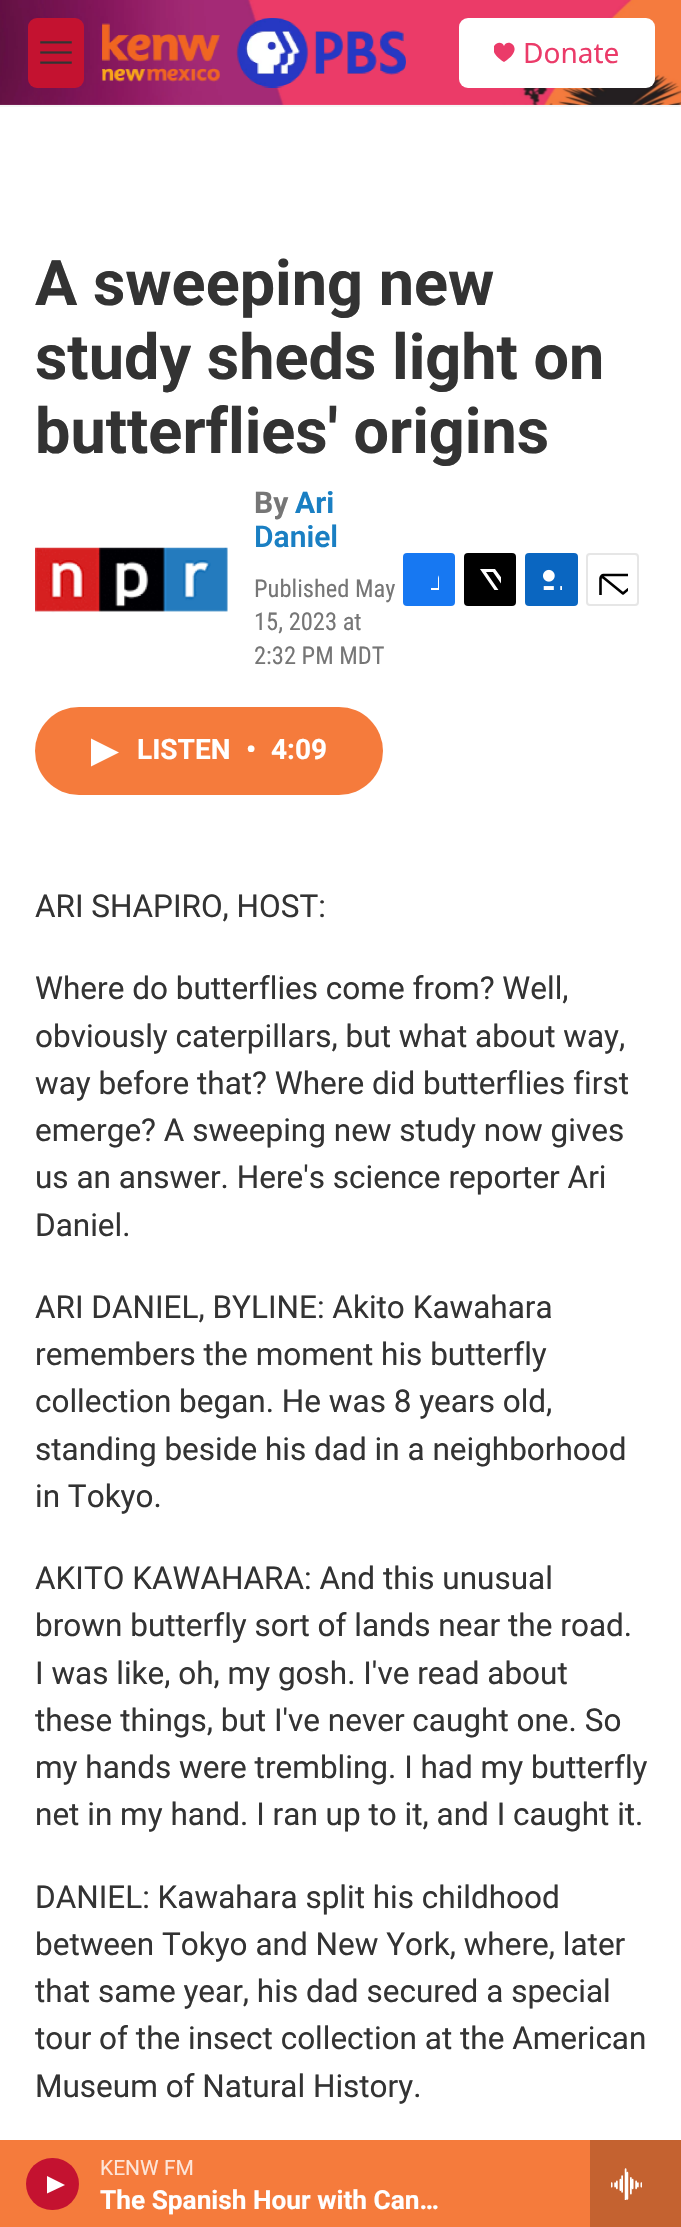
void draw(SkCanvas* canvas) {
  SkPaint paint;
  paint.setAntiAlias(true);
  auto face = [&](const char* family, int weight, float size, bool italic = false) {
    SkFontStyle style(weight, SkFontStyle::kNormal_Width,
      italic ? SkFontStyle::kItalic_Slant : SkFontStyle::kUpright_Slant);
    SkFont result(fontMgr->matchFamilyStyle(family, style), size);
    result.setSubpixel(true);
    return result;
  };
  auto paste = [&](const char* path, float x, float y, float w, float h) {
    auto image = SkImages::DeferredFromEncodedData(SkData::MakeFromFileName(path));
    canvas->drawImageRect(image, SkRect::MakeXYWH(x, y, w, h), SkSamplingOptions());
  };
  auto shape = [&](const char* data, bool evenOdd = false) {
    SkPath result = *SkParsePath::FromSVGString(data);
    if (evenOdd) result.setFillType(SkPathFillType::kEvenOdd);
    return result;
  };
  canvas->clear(0xffffffff);
  paint.setColor(0xfff5f5f5);
  canvas->drawRect(SkRect::MakeXYWH(0, 105, 681, 2), paint);
  paste("img/1.png", 0, 0, 681, 105);
  paint.setColor(0xffc41230);
  canvas->drawRoundRect(SkRect::MakeXYWH(28, 18, 56, 70), 9, 9, paint);
  paste("img/2.png", 40, 41, 32, 23);
  paste("img/3.png", 102, 18, 304, 70);
  paint.setColor(0xffffffff);
  canvas->drawRoundRect(SkRect::MakeXYWH(459, 18, 196, 70), 9, 9, paint);
  canvas->save();
  canvas->clipRect(SkRect::MakeXYWH(494, 42, 21, 21));
  paint.setColor(0xffeb3b69);
  canvas->drawPath(shape("M504 46C500.5 37 482 48.5 504 62C526 48.5 507.5 37 504 46Z"), paint);
  canvas->restore();
  paint.setColor(0xfff57b3c);
  canvas->drawRect(SkRect::MakeXYWH(0, 2140, 590, 87), paint);
  paint.setColor(0xffc41230);
  canvas->drawRoundRect(SkRect::MakeXYWH(26, 2158, 53, 52), 26, 26, paint);
  paint.setColor(0xffffffff);
  canvas->drawPath(shape("M47 2176L65 2185L47 2193.5Z"), paint);
  paint.setColor(0xffc46230);
  canvas->drawRect(SkRect::MakeXYWH(590, 2140, 91, 87), paint);
  paste("img/4.png", 611, 2168, 31, 32);
  paste("img/5.png", 35, 547, 193, 66);
  paint.setColor(0xff1778f2);
  canvas->drawRoundRect(SkRect::MakeXYWH(403, 553, 52, 53), 4, 4, paint);
  canvas->save();
  canvas->clipRect(SkRect::MakeXYWH(418, 569, 21, 21));
  paint.setColor(0xffffffff);
  canvas->drawPath(shape("M447 606H438V597H431V588H438V578C440 569.5 448 569 455 570V578C445.5 578 447 579.5 447 588H455V592.5L454 597H447Z"), paint);
  canvas->restore();
  paint.setColor(0xff000000);
  canvas->drawRoundRect(SkRect::MakeXYWH(464, 553, 52, 53), 4, 4, paint);
  canvas->save();
  canvas->clipRect(SkRect::MakeXYWH(480, 569, 21, 21));
  paint.setColor(0xffffffff);
  canvas->drawPath(shape("M511 591L516 598.5C516 600.5 516.5 602.5 515.5 604L493 572H486L509.5 606H505.5L502 601L498 606H493L500 598L480 569H495L509 588L516 579.5V585Z"), paint);
  canvas->restore();
  paint.setColor(0xff0a66c1);
  canvas->drawRoundRect(SkRect::MakeXYWH(525, 553, 53, 53), 4, 4, paint);
  paste("img/6.png", 543, 569, 19, 21);
  paint.setStroke(true);
  paint.setStrokeWidth(2);
  paint.setColor(0xffe6e6e6);
  canvas->drawRoundRect(SkRect::MakeXYWH(587, 554, 51, 51), 3, 3, paint);
  canvas->save();
  canvas->clipRect(SkRect::MakeXYWH(597, 564, 31, 31));
  paint.setStrokeWidth(2.6f);
  paint.setStrokeCap(SkPaint::kRound_Cap);
  paint.setStrokeJoin(SkPaint::kRound_Join);
  paint.setColor(0xff000000);
  canvas->drawPath(shape("M645.5 602C645.5 603.5 644 605 642.5 605H603.5C602 605 600.5 603.5 600.5 602V578.5C600.5 576.5 602 575 603.5 575H642.5C644 575 645.5 576.5 645.5 578.5ZM644.5 576L623 593.5L601.5 576"), paint);
  canvas->restore();
  paint.setStroke(false);
  paint.setColor(0xfff57b3c);
  canvas->drawRoundRect(SkRect::MakeXYWH(35, 707, 348, 88), 44, 44, paint);
  paint.setColor(0xffffffff);
  canvas->drawPath(shape("M91 738.5L119 752.5L91 766.5Z"), paint);
  auto f0 = face("Noto Sans", 400, 28);
  paint.setColor(0xffeb3b69);
  canvas->drawString("Donate", 523, 63, f0, paint);
  auto f1 = face("Roboto", 400, 21);
  paint.setColor(0xfffde5d8);
  canvas->drawString("KENW FM", 100, 2175, f1, paint);
  auto f2 = face("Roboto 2", 700, 26.25f);
  paint.setColor(0xffffffff);
  canvas->drawString("The Spanish Hour with Can…", 100, 2209, f2, paint);
  auto f3 = face("Roboto", 700, 63);
  paint.setColor(0xff333333);
  {
    const struct { const char* s; float x, y; } items[] = {
      {"A sweeping new", 35, 305},
      {"study sheds light on", 35, 379},
      {"butterflies' origins", 35, 453},
    };
    for (auto [s, x, y] : items) {
      canvas->drawString(s, x, y, f3, paint);
    }
  }
  auto f4 = face("Roboto", 700, 30);
  paint.setColor(0xff767676);
  canvas->drawString("By", 254, 513, f4, paint);
  paint.setColor(0xff1a7fc3);
  canvas->drawString("Ari", 295, 513, f4, paint);
  auto f5 = face("Roboto", 600, 30);
  canvas->drawString("Daniel", 254, 547, f5, paint);
  auto f6 = face("Roboto Condensed", 400, 24.5f);
  paint.setColor(0xff767676);
  {
    const struct { const char* s; float x, y; } items[] = {
      {"Published May", 254, 597},
      {"15, 2023 at", 254, 630},
      {"2:32 PM MDT", 254, 664},
    };
    for (auto [s, x, y] : items) {
      canvas->drawString(s, x, y, f6, paint);
    }
  }
  auto f7 = face("Roboto 2", 700, 28);
  paint.setColor(0xffffffff);
  {
    const struct { const char* s; float x, y; } items[] = {
      {"LISTEN", 137, 759},
      {"•", 246, 759},
      {"4:09", 271, 759},
    };
    for (auto [s, x, y] : items) {
      canvas->drawString(s, x, y, f7, paint);
    }
  }
  auto f8 = face("Roboto", 400, 31.5f);
  paint.setColor(0xff333333);
  {
    const struct { const char* s; float x, y; } items[] = {
      {"ARI SHAPIRO, HOST:", 35, 917},
      {"Where do butterflies come from? Well,", 35, 999},
      {"obviously caterpillars, but what about way,", 35, 1047},
      {"way before that? Where did butterflies first", 35, 1094},
      {"emerge? A sweeping new study now gives", 35, 1141},
      {"us an answer. Here's science reporter Ari", 35, 1188},
      {"Daniel.", 35, 1236},
      {"ARI DANIEL, BYLINE: Akito Kawahara", 35, 1318},
      {"remembers the moment his butterfly", 35, 1365},
      {"collection began. He was 8 years old,", 35, 1412},
      {"standing beside his dad in a neighborhood", 35, 1460},
      {"in Tokyo.", 35, 1507},
      {"AKITO KAWAHARA: And this unusual", 35, 1589},
      {"brown butterfly sort of lands near the road.", 35, 1636},
      {"I was like, oh, my gosh. I've read about", 35, 1684},
      {"these things, but I've never caught one. So", 35, 1731},
      {"my hands were trembling. I had my butterfly", 35, 1778},
      {"net in my hand. I ran up to it, and I caught it.", 35, 1825},
      {"DANIEL: Kawahara split his childhood", 35, 1908},
      {"between Tokyo and New York, where, later", 35, 1955},
      {"that same year, his dad secured a special", 35, 2002},
      {"tour of the insect collection at the American", 35, 2049},
      {"Museum of Natural History.", 35, 2097},
    };
    for (auto [s, x, y] : items) {
      canvas->drawString(s, x, y, f8, paint);
    }
  }
}
